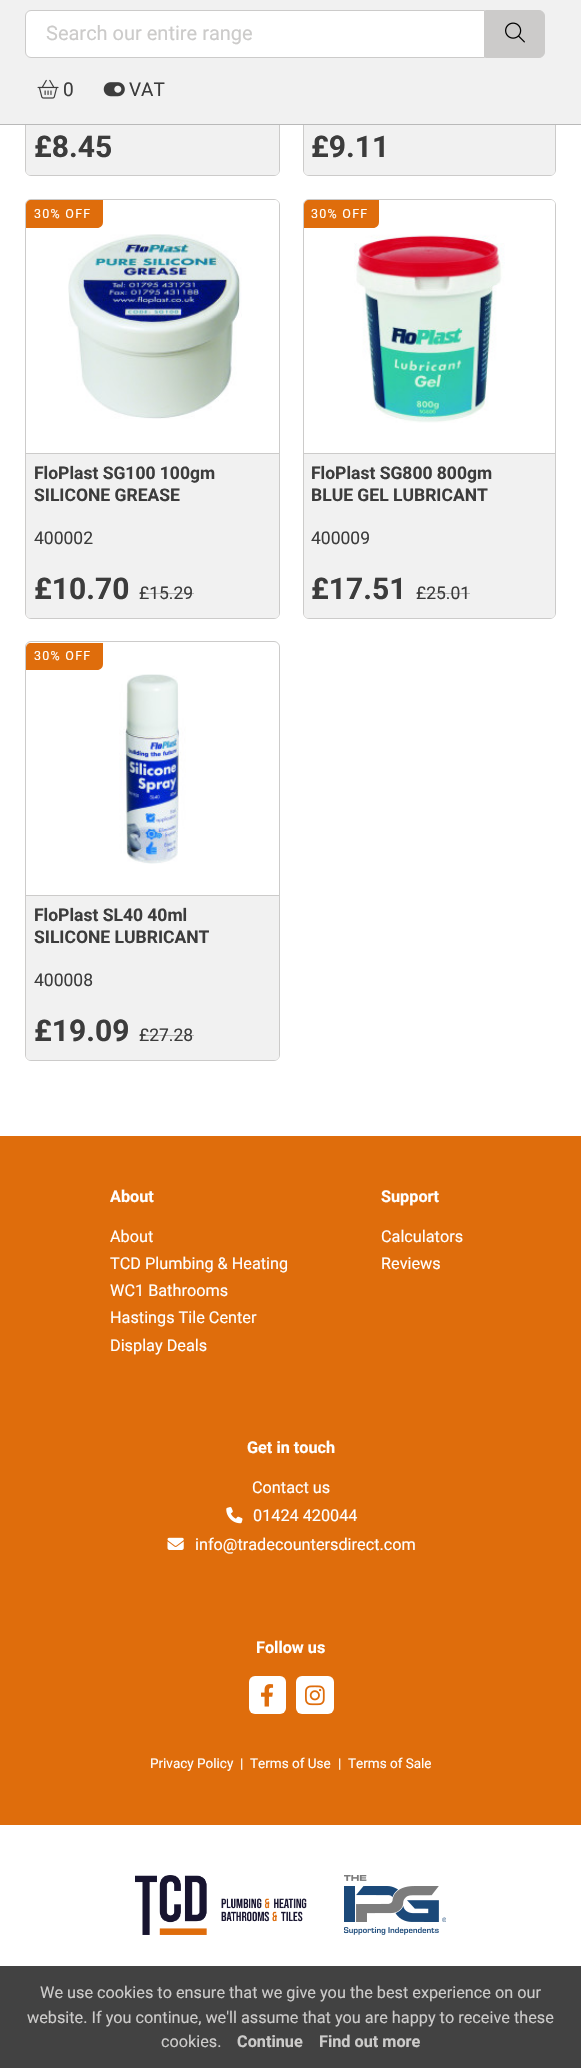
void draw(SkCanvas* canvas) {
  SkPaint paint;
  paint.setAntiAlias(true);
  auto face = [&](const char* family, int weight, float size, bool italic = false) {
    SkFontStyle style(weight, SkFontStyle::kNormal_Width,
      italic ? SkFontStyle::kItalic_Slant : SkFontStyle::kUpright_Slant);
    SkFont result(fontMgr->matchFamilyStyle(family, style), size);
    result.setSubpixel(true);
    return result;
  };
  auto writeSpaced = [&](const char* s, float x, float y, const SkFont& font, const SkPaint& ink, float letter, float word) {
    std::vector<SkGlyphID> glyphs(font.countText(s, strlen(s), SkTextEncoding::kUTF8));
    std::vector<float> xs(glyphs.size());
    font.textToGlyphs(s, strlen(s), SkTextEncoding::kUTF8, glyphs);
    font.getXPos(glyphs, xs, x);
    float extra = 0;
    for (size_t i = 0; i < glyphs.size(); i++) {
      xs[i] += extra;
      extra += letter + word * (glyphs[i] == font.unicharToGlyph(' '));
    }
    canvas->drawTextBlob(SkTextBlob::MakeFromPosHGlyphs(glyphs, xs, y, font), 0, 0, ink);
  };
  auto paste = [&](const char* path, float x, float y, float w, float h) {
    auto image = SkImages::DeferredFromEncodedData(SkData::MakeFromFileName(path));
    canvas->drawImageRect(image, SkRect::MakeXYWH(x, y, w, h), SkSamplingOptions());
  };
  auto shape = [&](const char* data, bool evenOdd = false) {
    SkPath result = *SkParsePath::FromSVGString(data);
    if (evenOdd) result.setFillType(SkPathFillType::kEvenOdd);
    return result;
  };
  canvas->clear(0xffffffff);
  paint.setStroke(true);
  paint.setStrokeWidth(1);
  paint.setColor(0xffcccbca);
  canvas->drawRoundRect(SkRect::MakeXYWH(25.5f, -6.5f, 254, 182), 5.5f, 5.5f, paint);
  paint.setStroke(false);
  paint.setColor(0xfff1f1f1);
  canvas->drawPath(shape("M26 10H279V170C279 173 277 175 274 175H31C28 175 26 173 26 170Z"), paint);
  paint.setStroke(true);
  paint.setColor(0xffcccbca);
  canvas->drawRoundRect(SkRect::MakeXYWH(303.5f, -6.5f, 252, 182), 5.5f, 5.5f, paint);
  paint.setStroke(false);
  paint.setColor(0xfff1f1f1);
  canvas->drawPath(shape("M304 10H555V170C555 173 553 175 550 175H309C306 175 304 173 304 170Z"), paint);
  canvas->drawRect(SkRect::MakeXYWH(0, 0, 581, 124), paint);
  paint.setColor(0xffb9b9b9);
  canvas->drawRect(SkRect::MakeXYWH(0, 124, 581, 1), paint);
  paint.setColor(0xffffffff);
  canvas->drawPath(shape("M31 10.5H484.5V57.5H31C28 57.5 25.5 55 25.5 52V16C25.5 13 28 10.5 31 10.5Z"), paint);
  paint.setStroke(true);
  paint.setColor(0xffcccbca);
  canvas->drawPath(shape("M31 10.5H484.5V57.5H31C28 57.5 25.5 55 25.5 52V16C25.5 13 28 10.5 31 10.5Z"), paint);
  paint.setStroke(false);
  canvas->drawPath(shape("M485.5 10.5H539C542 10.5 544.5 13 544.5 16V52C544.5 55 542 57.5 539 57.5H485.5Z"), paint);
  paint.setStroke(true);
  canvas->drawPath(shape("M485.5 10.5H539C542 10.5 544.5 13 544.5 16V52C544.5 55 542 57.5 539 57.5H485.5Z"), paint);
  paste("img/1.png", 505, 22, 20, 21);
  paste("img/2.png", 37, 79, 22, 20);
  paste("img/3.png", 103, 82, 22, 15);
  canvas->drawRoundRect(SkRect::MakeXYWH(25.5f, 199.5f, 254, 419), 5.5f, 5.5f, paint);
  paint.setStroke(false);
  paint.setColor(0xffffffff);
  canvas->drawPath(shape("M31 200H274C277 200 279 202 279 205V453H26V205C26 202 28 200 31 200Z"), paint);
  paint.setColor(0xffdf6d0c);
  canvas->drawPath(shape("M31 200H103V222C103 225.5 100.5 228 97 228H26V205C26 202 28 200 31 200Z"), paint);
  paste("img/4.png", 68, 234, 174, 185);
  paint.setColor(0xfff1f1f1);
  canvas->drawPath(shape("M26 453H279V613C279 616 277 618 274 618H31C28 618 26 616 26 613Z"), paint);
  paint.setColor(0xffcccbca);
  canvas->drawRect(SkRect::MakeXYWH(26, 453, 253, 1), paint);
  paint.setColor(0xffb5b5b5);
  canvas->drawRect(SkRect::MakeXYWH(139, 593, 55, 1), paint);
  paint.setStroke(true);
  paint.setColor(0xffcccbca);
  canvas->drawRoundRect(SkRect::MakeXYWH(303.5f, 199.5f, 252, 419), 5.5f, 5.5f, paint);
  paint.setStroke(false);
  paint.setColor(0xffffffff);
  canvas->drawPath(shape("M309 200H550C553 200 555 202 555 205V453H304V205C304 202 306 200 309 200Z"), paint);
  paste("img/5.png", 304, 201, 251, 222);
  paint.setColor(0xffdf6d0c);
  canvas->drawPath(shape("M309 200H379V222C379 225.5 376.5 228 373 228H304V205C304 202 306 200 309 200Z"), paint);
  paint.setColor(0xfff1f1f1);
  canvas->drawPath(shape("M304 453H555V613C555 616 553 618 550 618H309C306 618 304 616 304 613Z"), paint);
  paint.setColor(0xffcccbca);
  canvas->drawRect(SkRect::MakeXYWH(304, 453, 251, 1), paint);
  paint.setColor(0xffb5b5b5);
  canvas->drawRect(SkRect::MakeXYWH(416, 593, 54, 1), paint);
  paint.setStroke(true);
  paint.setColor(0xffcccbca);
  canvas->drawRoundRect(SkRect::MakeXYWH(25.5f, 641.5f, 254, 419), 5.5f, 5.5f, paint);
  paint.setStroke(false);
  paint.setColor(0xffffffff);
  canvas->drawPath(shape("M31 643H274C277 643 279 645 279 648V895H26V648C26 645 28 643 31 643Z"), paint);
  paint.setColor(0xffdf6d0c);
  canvas->drawPath(shape("M31 643H103V664C103 667.5 100.5 670 97 670H26V648C26 645 28 643 31 643Z"), paint);
  paste("img/6.png", 119, 674, 67, 190);
  paint.setColor(0xfff1f1f1);
  canvas->drawPath(shape("M26 895H279V1055C279 1058 277 1060 274 1060H31C28 1060 26 1058 26 1055Z"), paint);
  {
    const struct { float x, y, w, h; SkColor color; } items[] = {
      {26, 895, 253, 1, 0xffcccbca},
      {139, 1035, 55, 1, 0xffb5b5b5},
      {0, 1136, 581, 689, 0xffdf6d0c},
    };
    for (auto [x, y, w, h, color] : items) {
      paint.setColor(color);
      canvas->drawRect(SkRect::MakeXYWH(x, y, w, h), paint);
    }
  }
  paste("img/7.png", 226, 1507, 17, 17);
  paste("img/8.png", 167, 1537, 17, 13);
  paint.setColor(0xffffffff);
  canvas->drawRoundRect(SkRect::MakeXYWH(249, 1676, 37, 38), 6, 6, paint);
  paste("img/9.png", 261, 1684, 13, 23);
  canvas->drawRoundRect(SkRect::MakeXYWH(296, 1676, 38, 38), 6, 6, paint);
  paste("img/10.png", 305, 1685, 20, 21);
  paste("img/11.png", 135, 1875, 172, 60);
  paste("img/12.png", 344, 1875, 102, 60);
  paint.setColor(0xff424242);
  canvas->drawRect(SkRect::MakeXYWH(0, 1966, 581, 102), paint);
  auto f0 = face("Roboto", 400, 20);
  paint.setColor(0xffcccbca);
  canvas->drawString("Search our entire range", 46, 40, f0, paint);
  auto f1 = face("Roboto", 400, 19);
  paint.setColor(0xff3c3c3c);
  canvas->drawString("0", 63, 96, f1, paint);
  canvas->drawString("VAT", 129, 96, f1, paint);
  auto f2 = face("Roboto", 700, 30);
  canvas->drawString("£8.45", 34, 157, f2, paint);
  canvas->drawString("£9.11", 311, 157, f2, paint);
  auto f3 = face("Roboto", 400, 12.5f);
  paint.setColor(0xffffffff);
  writeSpaced("30% OFF", 34, 218, f3, paint, 1.25f, 0);
  auto f4 = face("Roboto", 700, 17.5f);
  paint.setColor(0xff3c3c3c);
  canvas->drawString("FloPlast SG100 100gm", 34, 479, f4, paint);
  canvas->drawString("SILICONE GREASE", 34, 501, f4, paint);
  auto f5 = face("Roboto", 400, 17.5f);
  canvas->drawString("400002", 34, 544, f5, paint);
  canvas->drawString("£10.70", 34, 599, f2, paint);
  canvas->drawString("£15.29", 139, 599, f5, paint);
  paint.setColor(0xffffffff);
  writeSpaced("30% OFF", 311, 218, f3, paint, 1.25f, 0);
  paint.setColor(0xff3c3c3c);
  canvas->drawString("FloPlast SG800 800gm", 311, 479, f4, paint);
  canvas->drawString("BLUE GEL LUBRICANT", 311, 501, f4, paint);
  canvas->drawString("400009", 311, 544, f5, paint);
  canvas->drawString("£17.51", 311, 599, f2, paint);
  canvas->drawString("£25.01", 416, 599, f5, paint);
  paint.setColor(0xffffffff);
  writeSpaced("30% OFF", 34, 660, f3, paint, 1.25f, 0);
  paint.setColor(0xff3c3c3c);
  canvas->drawString("FloPlast SL40 40ml", 34, 921, f4, paint);
  canvas->drawString("SILICONE LUBRICANT", 34, 943, f4, paint);
  canvas->drawString("400008", 34, 986, f5, paint);
  canvas->drawString("£19.09", 34, 1041, f2, paint);
  canvas->drawString("£27.28", 139, 1041, f5, paint);
  auto f6 = face("Roboto", 700, 16.25f);
  paint.setColor(0xffffffff);
  canvas->drawString("About", 110, 1202, f6, paint);
  auto f7 = face("Roboto", 400, 16.25f);
  {
    const struct { const char* s; float x, y; } items[] = {
      {"About", 110, 1242},
      {"TCD Plumbing & Heating", 110, 1269},
      {"WC1 Bathrooms", 110, 1296},
      {"Hastings Tile Center", 110, 1323},
      {"Display Deals", 110, 1351},
    };
    for (auto [s, x, y] : items) {
      canvas->drawString(s, x, y, f7, paint);
    }
  }
  canvas->drawString("Support", 381, 1202, f6, paint);
  canvas->drawString("Calculators", 381, 1242, f7, paint);
  canvas->drawString("Reviews", 381, 1269, f7, paint);
  canvas->drawString("Get in touch", 247, 1453, f6, paint);
  {
    const struct { const char* s; float x, y; } items[] = {
      {"Contact us", 252, 1493},
      {"01424 420044", 253, 1521},
      {"info@tradecountersdirect.com", 195, 1550},
    };
    for (auto [s, x, y] : items) {
      canvas->drawString(s, x, y, f7, paint);
    }
  }
  canvas->drawString("Follow us", 256, 1653, f6, paint);
  auto f8 = face("Roboto", 400, 13.5f);
  {
    const struct { const char* s; float x, y; } items[] = {
      {"Privacy Policy", 150, 1768},
      {"|", 240, 1768},
      {"Terms of Use", 250, 1768},
      {"|", 338, 1768},
      {"Terms of Sale", 348, 1768},
    };
    for (auto [s, x, y] : items) {
      canvas->drawString(s, x, y, f8, paint);
    }
  }
  paint.setColor(0xffcccbca);
  {
    const struct { const char* s; float x, y; } items[] = {
      {"We use cookies to ensure that we give you the best experience on our", 40, 1998},
      {"website. If you continue, we'll assume that you are happy to receive these", 27, 2023},
      {"cookies.", 161, 2047},
    };
    for (auto [s, x, y] : items) {
      canvas->drawString(s, x, y, f7, paint);
    }
  }
  canvas->drawString("Continue", 237, 2047, f6, paint);
  canvas->drawString("Find out more", 319, 2047, f6, paint);
}
